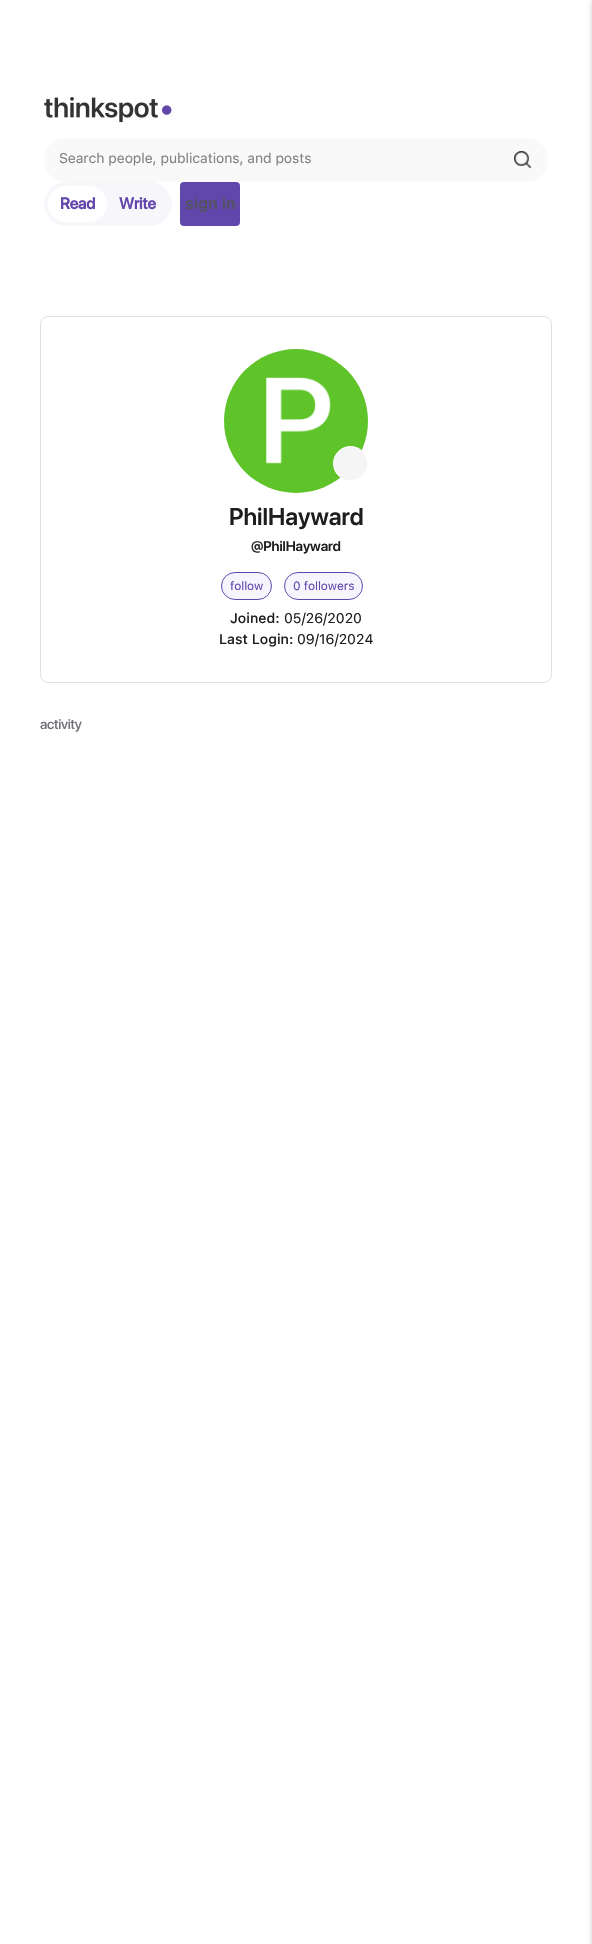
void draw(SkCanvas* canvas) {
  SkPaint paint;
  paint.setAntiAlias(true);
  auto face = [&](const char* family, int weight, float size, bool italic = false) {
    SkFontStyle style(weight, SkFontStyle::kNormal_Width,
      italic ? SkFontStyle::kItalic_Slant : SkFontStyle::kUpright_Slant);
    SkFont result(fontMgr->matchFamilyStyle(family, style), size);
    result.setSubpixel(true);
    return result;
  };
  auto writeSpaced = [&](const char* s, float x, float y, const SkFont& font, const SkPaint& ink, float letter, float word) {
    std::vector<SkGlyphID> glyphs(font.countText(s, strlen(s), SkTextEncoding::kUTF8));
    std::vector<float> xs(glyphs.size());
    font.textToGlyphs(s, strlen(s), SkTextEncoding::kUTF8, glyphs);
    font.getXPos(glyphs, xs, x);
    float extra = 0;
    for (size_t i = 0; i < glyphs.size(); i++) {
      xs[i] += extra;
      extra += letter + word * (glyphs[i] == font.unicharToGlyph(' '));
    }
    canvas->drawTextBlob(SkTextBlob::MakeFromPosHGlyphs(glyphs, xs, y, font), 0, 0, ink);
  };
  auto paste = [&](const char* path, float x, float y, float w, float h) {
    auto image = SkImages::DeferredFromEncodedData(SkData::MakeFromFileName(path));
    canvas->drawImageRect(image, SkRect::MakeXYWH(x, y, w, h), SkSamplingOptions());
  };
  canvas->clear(0xffffffff);
  paste("img/1.png", 44, 97, 114, 26);
  paste("img/2.png", 162, 105, 10, 10);
  paint.setColor(0xfff9f9f9);
  canvas->drawRoundRect(SkRect::MakeXYWH(44, 138, 504, 44), 22, 22, paint);
  paste("img/3.png", 514, 151, 17, 17);
  paint.setColor(0xfff7f6fb);
  canvas->drawRoundRect(SkRect::MakeXYWH(44, 182, 128, 44), 22, 22, paint);
  paint.setColor(0xffffffff);
  canvas->drawRoundRect(SkRect::MakeXYWH(48, 186, 59, 36), 18, 18, paint);
  paint.setColor(0xff6147ac);
  canvas->drawRoundRect(SkRect::MakeXYWH(180, 182, 60, 44), 4, 4, paint);
  paint.setColor(0x33000000);
  paint.setMaskFilter(SkMaskFilter::MakeBlur(kNormal_SkBlurStyle, 2.5f));
  canvas->drawRect(SkRect::MakeXYWH(592, 1, 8, 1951), paint);
  paint.setMaskFilter(nullptr);
  paint.setStroke(true);
  paint.setStrokeWidth(1);
  paint.setColor(0xffe0e0e0);
  canvas->drawRoundRect(SkRect::MakeXYWH(40.5f, 316.5f, 511, 366), 7.5f, 7.5f, paint);
  paste("img/4.png", 224, 349, 144, 144);
  paint.setStroke(false);
  paint.setColor(0xfff5f5f5);
  canvas->drawCircle(350.5f, 463.5f, 17, paint);
  paint.setStroke(true);
  paint.setColor(0xffffffff);
  canvas->drawCircle(350.5f, 463.5f, 17, paint);
  paint.setStroke(false);
  paint.setColor(0xfff6f5fe);
  canvas->drawRoundRect(SkRect::MakeXYWH(221.5f, 572.5f, 50, 27), 13.5f, 13.5f, paint);
  paint.setStroke(true);
  paint.setColor(0xff6147ac);
  canvas->drawRoundRect(SkRect::MakeXYWH(221.5f, 572.5f, 50, 27), 13.5f, 13.5f, paint);
  paint.setStroke(false);
  paint.setColor(0xfff6f5fe);
  canvas->drawRoundRect(SkRect::MakeXYWH(284.5f, 572.5f, 78, 27), 13.5f, 13.5f, paint);
  paint.setStroke(true);
  paint.setColor(0xff6147ac);
  canvas->drawRoundRect(SkRect::MakeXYWH(284.5f, 572.5f, 78, 27), 13.5f, 13.5f, paint);
  auto f0 = face("SF Pro Text", 400, 14);
  paint.setStroke(false);
  paint.setColor(0xff828282);
  writeSpaced("Search people, publications, and posts", 59, 163, f0, paint, -0.1f, 0);
  auto f1 = face("SF Pro Display", 700, 16);
  paint.setColor(0xff6147ac);
  writeSpaced("Read", 60, 209, f1, paint, -0.1f, 0);
  writeSpaced("Write", 119, 209, f1, paint, -0.1f, 0);
  auto f2 = face("SF Pro Text", 600, 16);
  paint.setColor(0xff52525b);
  writeSpaced("sign in", 185, 209, f2, paint, -0.1f, 0);
  auto f3 = face("SF Pro Display", 600, 24);
  paint.setColor(0xff1e1c1c);
  canvas->drawString("PhilHayward", 229, 525, f3, paint);
  auto f4 = face("SF Pro Display", 600, 14);
  writeSpaced("@PhilHayward", 251, 551, f4, paint, -0.1f, 0);
  auto f5 = face("SF Pro Text", 400, 12);
  paint.setColor(0xff6147ac);
  writeSpaced("follow", 230, 590, f5, paint, -0.1f, 0);
  writeSpaced("0 followers", 293, 590, f5, paint, -0.1f, 0);
  auto f6 = face("SF Pro Text", 500, 14);
  paint.setColor(0xff1e1c1c);
  canvas->drawString("Joined:", 230, 623, f6, paint);
  canvas->drawString("05/26/2020", 284, 623, f0, paint);
  canvas->drawString("Last Login:", 219, 644, f6, paint);
  canvas->drawString("09/16/2024", 297, 644, f0, paint);
  auto f7 = face("SF Pro Display", 500, 14);
  paint.setColor(0xff71717a);
  writeSpaced("activity", 40, 729, f7, paint, -0.25f, 0);
}
